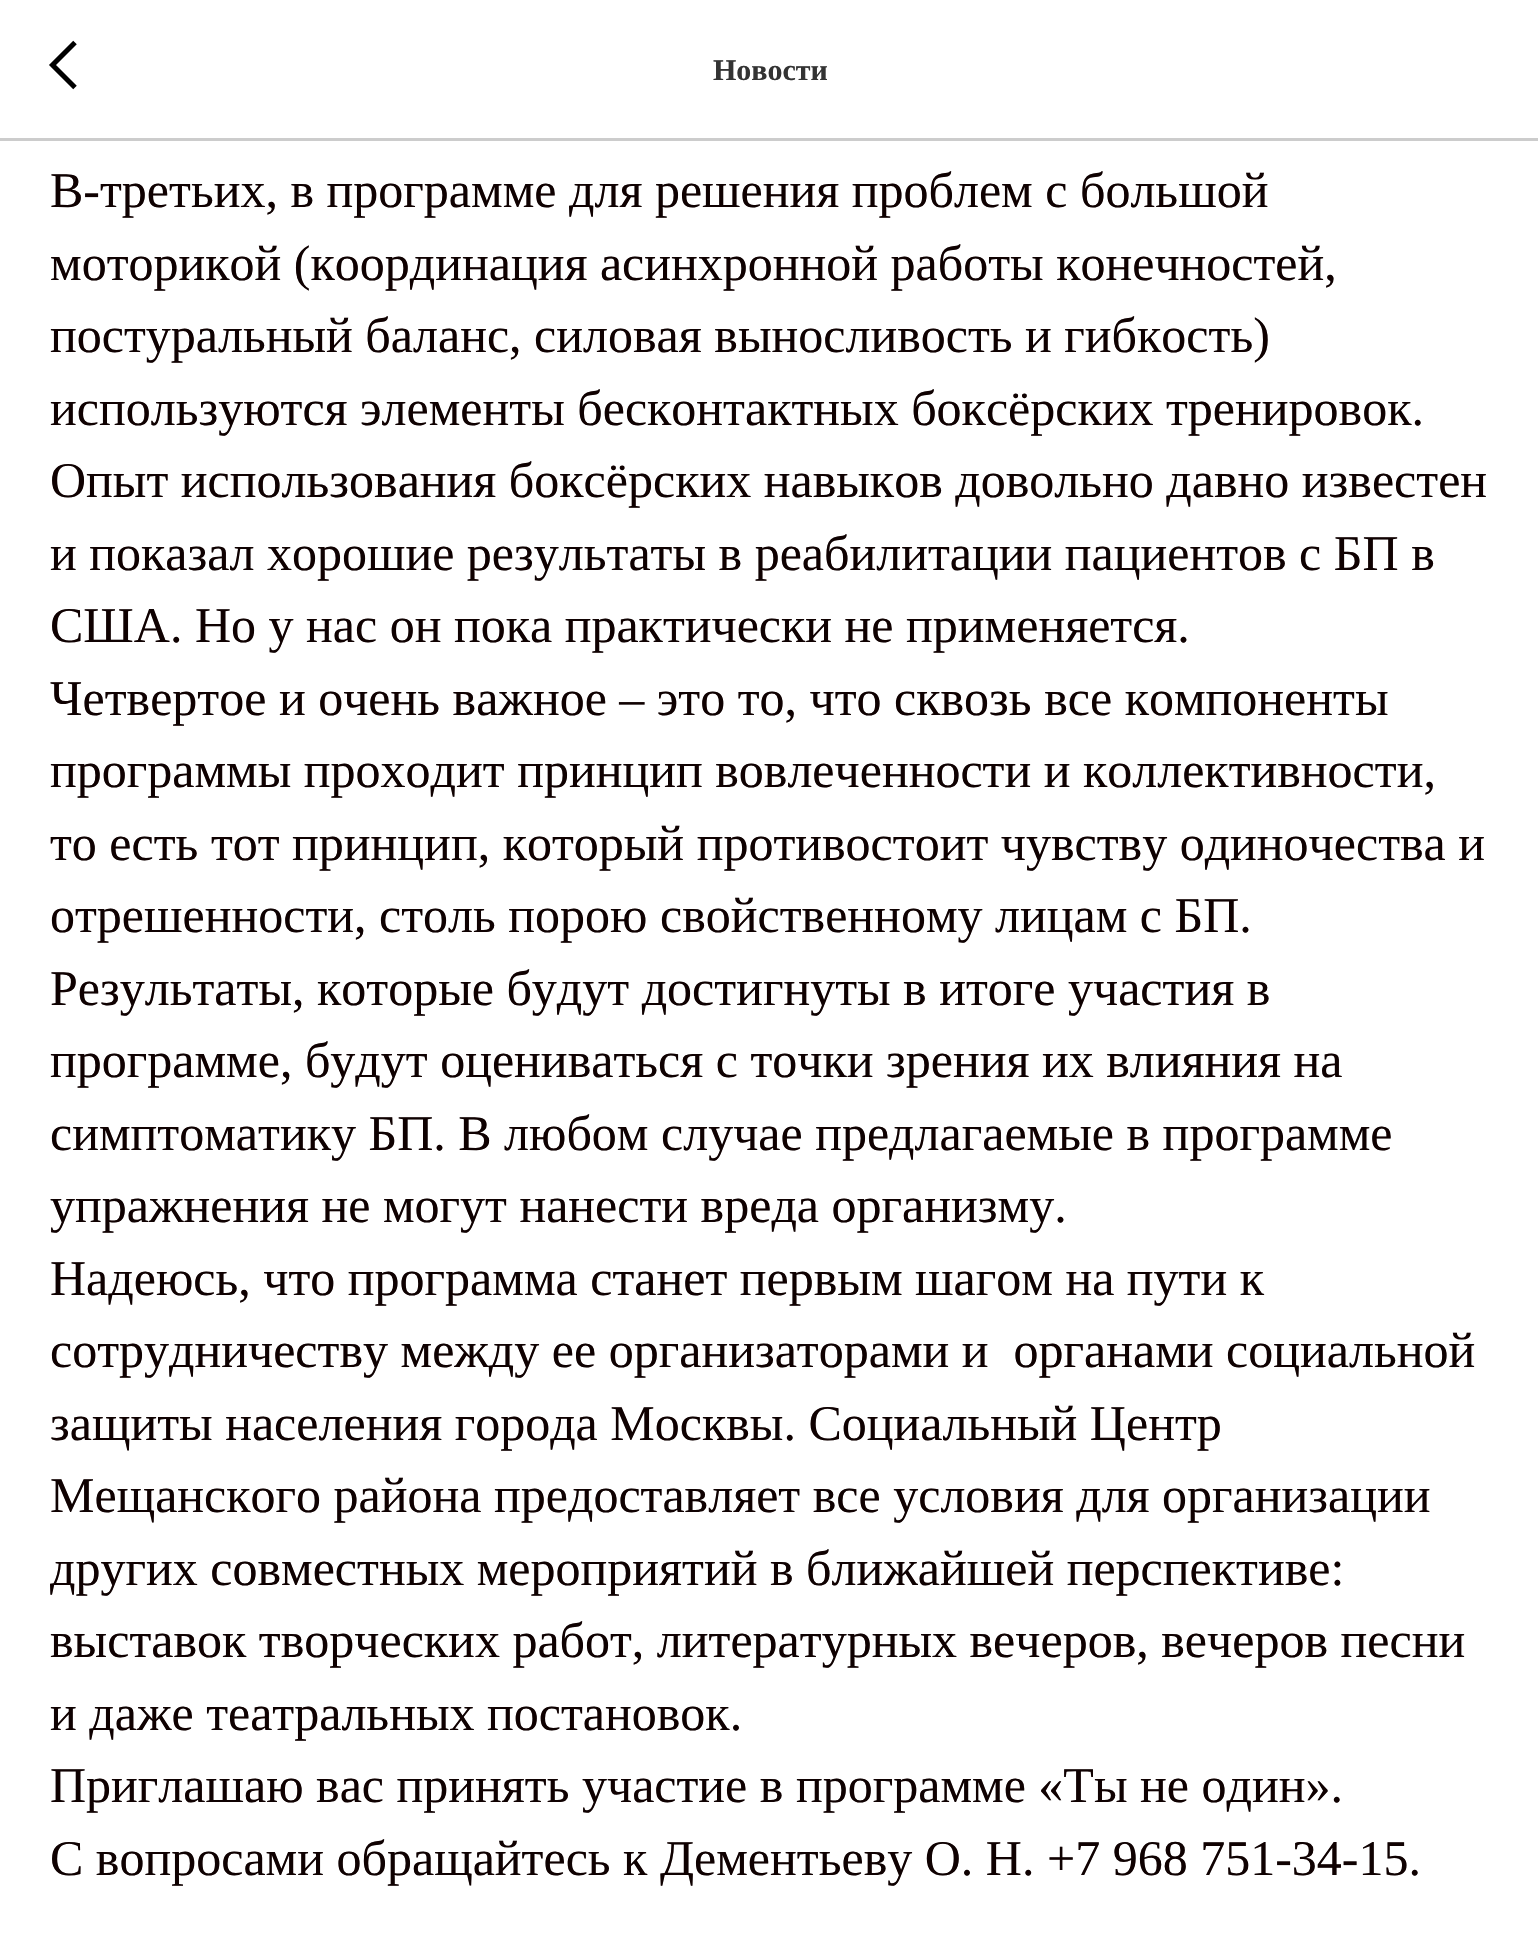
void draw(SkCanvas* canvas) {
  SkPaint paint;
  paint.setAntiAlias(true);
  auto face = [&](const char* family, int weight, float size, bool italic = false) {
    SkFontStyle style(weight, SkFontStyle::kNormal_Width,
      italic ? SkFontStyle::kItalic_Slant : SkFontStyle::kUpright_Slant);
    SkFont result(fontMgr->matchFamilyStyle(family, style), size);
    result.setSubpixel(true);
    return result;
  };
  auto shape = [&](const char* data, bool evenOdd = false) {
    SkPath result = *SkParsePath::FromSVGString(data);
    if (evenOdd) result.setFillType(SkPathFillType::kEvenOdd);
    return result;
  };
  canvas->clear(0xffffffff);
  paint.setColor(0xffcccccc);
  canvas->drawRect(SkRect::MakeXYWH(0, 138, 1538, 3), paint);
  paint.setStroke(true);
  paint.setStrokeWidth(5);
  paint.setColor(0xff000000);
  canvas->drawPath(shape("M75 87.5L52.5 65L75 42.5"), paint);
  auto f0 = face("Liberation Serif", 700, 30);
  paint.setStroke(false);
  paint.setColor(0xff333333);
  canvas->drawString("Новости", 713, 80, f0, paint);
  auto f1 = face("Liberation Serif", 400, 50);
  paint.setColor(0xff0f0101);
  {
    const struct { const char* s; float x, y; } items[] = {
      {"В-третьих, в программе для решения проблем с большой", 50, 207},
      {"моторикой (координация асинхронной работы конечностей,", 50, 280},
      {"постуральный баланс, силовая выносливость и гибкость)", 50, 352},
      {"используются элементы бесконтактных боксёрских тренировок.", 50, 425},
      {"Опыт использования боксёрских навыков довольно давно известен", 50, 497},
      {"и показал хорошие результаты в реабилитации пациентов с БП в", 50, 570},
      {"США. Но у нас он пока практически не применяется.", 50, 642},
      {"Четвертое и очень важное – это то, что сквозь все компоненты", 50, 715},
      {"программы проходит принцип вовлеченности и коллективности,", 50, 787},
      {"то есть тот принцип, который противостоит чувству одиночества и", 50, 860},
      {"отрешенности, столь порою свойственному лицам с БП.", 50, 932},
      {"Результаты, которые будут достигнуты в итоге участия в", 50, 1005},
      {"программе, будут оцениваться с точки зрения их влияния на", 50, 1077},
      {"симптоматику БП. В любом случае предлагаемые в программе", 50, 1150},
      {"упражнения не могут нанести вреда организму.", 50, 1222},
      {"Надеюсь, что программа станет первым шагом на пути к", 50, 1295},
      {"сотрудничеству между ее организаторами и  органами социальной", 50, 1367},
      {"защиты населения города Москвы. Социальный Центр", 50, 1440},
      {"Мещанского района предоставляет все условия для организации", 50, 1512},
      {"других совместных мероприятий в ближайшей перспективе:", 50, 1585},
      {"выставок творческих работ, литературных вечеров, вечеров песни", 50, 1657},
      {"и даже театральных постановок.", 50, 1730},
      {"Приглашаю вас принять участие в программе «Ты не один».", 50, 1802},
      {"С вопросами обращайтесь к Дементьеву О. Н. +7 968 751-34-15.", 50, 1875},
    };
    for (auto [s, x, y] : items) {
      canvas->drawString(s, x, y, f1, paint);
    }
  }
}
